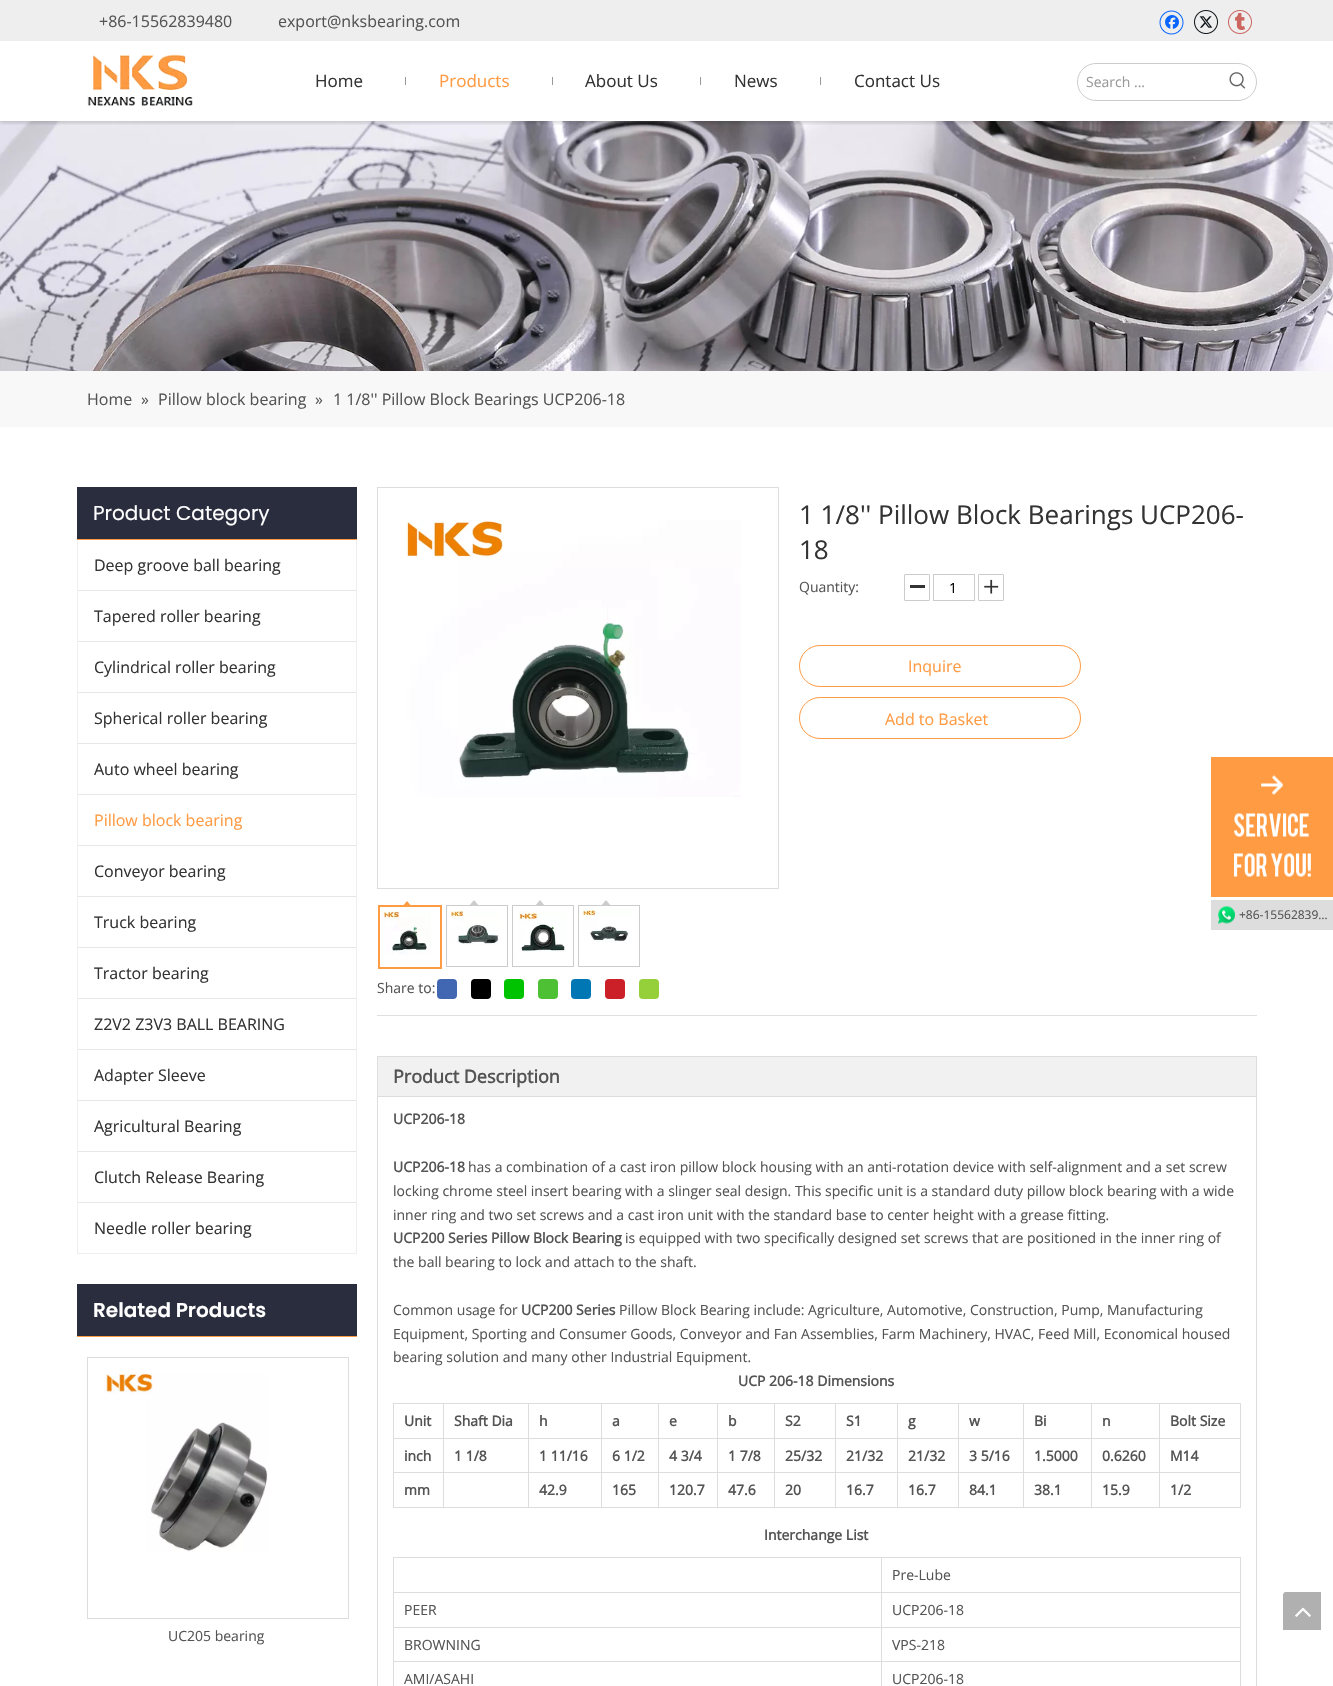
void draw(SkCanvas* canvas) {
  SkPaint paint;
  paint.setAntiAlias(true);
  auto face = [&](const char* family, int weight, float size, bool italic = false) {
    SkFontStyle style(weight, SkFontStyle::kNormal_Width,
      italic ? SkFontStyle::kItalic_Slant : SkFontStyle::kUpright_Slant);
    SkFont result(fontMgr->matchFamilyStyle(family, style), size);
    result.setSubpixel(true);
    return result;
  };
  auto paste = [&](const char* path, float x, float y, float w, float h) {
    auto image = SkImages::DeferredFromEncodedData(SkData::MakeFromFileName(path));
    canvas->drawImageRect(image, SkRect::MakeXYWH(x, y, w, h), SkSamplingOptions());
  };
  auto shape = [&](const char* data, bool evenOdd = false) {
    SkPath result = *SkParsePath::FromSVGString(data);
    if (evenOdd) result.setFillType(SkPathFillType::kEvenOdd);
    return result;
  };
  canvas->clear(0xffffffff);
  paint.setColor(0xffeeeeee);
  canvas->drawRect(SkRect::MakeXYWH(0, 0, 1333, 41), paint);
  paste("img/1.png", 1159, 10, 25, 25);
  paste("img/2.png", 1194, 10, 24, 24);
  paste("img/3.png", 1228, 10, 24, 24);
  paste("img/6.png", 0, 121, 1333, 250);
  canvas->save();
  canvas->clipRect(SkRect::MakeXYWH(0, 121, 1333, 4));
  paint.setColor(0x29000000);
  paint.setMaskFilter(SkMaskFilter::MakeBlur(kNormal_SkBlurStyle, 2));
  canvas->drawRect(SkRect::MakeXYWH(0, 43, 1333, 80), paint);
  paint.setMaskFilter(nullptr);
  canvas->restore();
  paste("img/4.png", 87, 54, 106, 52);
  {
    const struct { float x, y, w, h; SkColor color; } items[] = {
      {405, 77, 1, 8, 0xff999999},
      {552, 77, 1, 8, 0xff999999},
      {700, 77, 1, 8, 0xff999999},
      {820, 77, 1, 8, 0xff999999},
    };
    for (auto [x, y, w, h, color] : items) {
      paint.setColor(color);
      canvas->drawRect(SkRect::MakeXYWH(x, y, w, h), paint);
    }
  }
  paint.setStroke(true);
  paint.setStrokeWidth(1);
  paint.setColor(0xffcccccc);
  canvas->drawRoundRect(SkRect::MakeXYWH(1077.5f, 63.5f, 179, 37), 18.5f, 18.5f, paint);
  paste("img/5.png", 1229, 72, 17, 17);
  paint.setStroke(false);
  {
    const struct { float x, y, w, h; SkColor color; } items[] = {
      {0, 371, 1333, 56, 0xfff8f8f8},
      {77, 487, 280, 52, 0xff292d3e},
      {77, 539, 280, 1, 0xffff9b43},
      {356, 540, 1, 714, 0xffeeeeee},
      {77, 1253, 280, 1, 0xffeeeeee},
      {77, 540, 1, 714, 0xffeeeeee},
      {78, 590, 278, 1, 0xffe7e7e7},
      {78, 641, 278, 1, 0xffe7e7e7},
      {78, 692, 278, 1, 0xffe7e7e7},
      {78, 743, 278, 1, 0xffe7e7e7},
      {78, 794, 278, 1, 0xffe7e7e7},
      {78, 845, 278, 1, 0xffe7e7e7},
      {78, 896, 278, 1, 0xffe7e7e7},
      {78, 947, 278, 1, 0xffe7e7e7},
      {78, 998, 278, 1, 0xffe7e7e7},
      {78, 1049, 278, 1, 0xffe7e7e7},
      {78, 1100, 278, 1, 0xffe7e7e7},
      {78, 1151, 278, 1, 0xffe7e7e7},
      {78, 1202, 278, 1, 0xffe7e7e7},
      {77, 1284, 280, 52, 0xff292d3e},
      {77, 1336, 280, 1, 0xffff9b43},
    };
    for (auto [x, y, w, h, color] : items) {
      paint.setColor(color);
      canvas->drawRect(SkRect::MakeXYWH(x, y, w, h), paint);
    }
  }
  paint.setStroke(true);
  paint.setColor(0xffdddddd);
  canvas->drawRect(SkRect::MakeXYWH(87.5f, 1357.5f, 261, 261), paint);
  paste("img/7.png", 104, 1373, 164, 179);
  paint.setStroke(false);
  paint.setColor(0xff333333);
  canvas->drawRect(SkRect::MakeXYWH(910, 585, 15, 3), paint);
  paint.setStroke(true);
  paint.setColor(0xffcccccc);
  canvas->drawRoundRect(SkRect::MakeXYWH(904.5f, 574.5f, 25, 26), 0.5f, 0.5f, paint);
  canvas->drawRect(SkRect::MakeXYWH(933.5f, 574.5f, 41, 26), paint);
  paste("img/8.png", 984, 579, 15, 15);
  canvas->drawRoundRect(SkRect::MakeXYWH(978.5f, 574.5f, 25, 26), 0.5f, 0.5f, paint);
  paint.setColor(0xffff9b43);
  canvas->drawRoundRect(SkRect::MakeXYWH(799.5f, 645.5f, 281, 41), 20.5f, 20.5f, paint);
  canvas->drawRoundRect(SkRect::MakeXYWH(799.5f, 697.5f, 281, 41), 20.5f, 20.5f, paint);
  paint.setColor(0xffdddddd);
  canvas->drawRect(SkRect::MakeXYWH(377.5f, 487.5f, 401, 401), paint);
  paste("img/9.png", 406, 520, 335, 277);
  paint.setStrokeWidth(2);
  paint.setColor(0xffff9b43);
  canvas->drawRect(SkRect::MakeXYWH(379, 906, 62, 62), paint);
  paint.setStroke(false);
  canvas->drawPath(shape("M412 907H402L407 901Z"), paint);
  paste("img/10.png", 382, 911, 49, 44);
  paint.setStroke(true);
  paint.setStrokeWidth(1);
  paint.setColor(0xffcccccc);
  canvas->drawRect(SkRect::MakeXYWH(446.5f, 905.5f, 61, 61), paint);
  paint.setStroke(false);
  canvas->drawPath(shape("M479 906H469L474 900Z"), paint);
  paste("img/11.png", 450, 910, 50, 35);
  paint.setStroke(true);
  canvas->drawRect(SkRect::MakeXYWH(512.5f, 905.5f, 61, 61), paint);
  paint.setStroke(false);
  canvas->drawPath(shape("M545 906H535L540 900Z"), paint);
  paste("img/12.png", 518, 911, 48, 41);
  paint.setStroke(true);
  canvas->drawRect(SkRect::MakeXYWH(578.5f, 905.5f, 61, 61), paint);
  paint.setStroke(false);
  canvas->drawPath(shape("M611 906H601L606 900Z"), paint);
  paste("img/13.png", 582, 908, 49, 34);
  paint.setColor(0xff4267b2);
  canvas->drawRoundRect(SkRect::MakeXYWH(437, 979, 20, 20), 4, 4, paint);
  paint.setColor(0xff000000);
  canvas->drawRoundRect(SkRect::MakeXYWH(471, 979, 20, 20), 4, 4, paint);
  paint.setColor(0xff00c300);
  canvas->drawRoundRect(SkRect::MakeXYWH(504, 979, 20, 20), 4, 4, paint);
  paint.setColor(0xff4ec034);
  canvas->drawRoundRect(SkRect::MakeXYWH(538, 979, 20, 20), 4, 4, paint);
  paint.setColor(0xff0077b5);
  canvas->drawRoundRect(SkRect::MakeXYWH(571, 979, 20, 20), 4, 4, paint);
  paint.setColor(0xffcb2027);
  canvas->drawRoundRect(SkRect::MakeXYWH(605, 979, 20, 20), 4, 4, paint);
  paint.setColor(0xff95d03a);
  canvas->drawRoundRect(SkRect::MakeXYWH(639, 979, 20, 20), 4, 4, paint);
  paint.setColor(0xffdfdfdf);
  canvas->drawRect(SkRect::MakeXYWH(377, 1015, 880, 1), paint);
  paint.setStroke(true);
  paint.setColor(0xffdddddd);
  canvas->drawRect(SkRect::MakeXYWH(377.5f, 1056.5f, 879, 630), paint);
  paint.setStroke(false);
  {
    const struct { float x, y, w, h; SkColor color; } items[] = {
      {378, 1057, 878, 39, 0xfff1f1f1},
      {378, 1096, 878, 1, 0xffdddddd},
      {1159, 1403, 82, 1, 0xffdddddd},
      {1159, 1438, 82, 1, 0xffdddddd},
      {1159, 1472, 82, 1, 0xffdddddd},
      {1240, 1472, 1, 36, 0xffdddddd},
      {1159, 1507, 82, 1, 0xffdddddd},
      {1159, 1472, 1, 36, 0xffdddddd},
      {1091, 1472, 69, 1, 0xffdddddd},
      {1159, 1438, 1, 35, 0xffdddddd},
      {1091, 1438, 69, 1, 0xffdddddd},
      {1159, 1403, 1, 36, 0xffdddddd},
      {1091, 1403, 69, 1, 0xffdddddd},
      {1091, 1507, 69, 1, 0xffdddddd},
      {1091, 1472, 1, 36, 0xffdddddd},
      {1023, 1472, 69, 1, 0xffdddddd},
      {1091, 1438, 1, 35, 0xffdddddd},
      {1023, 1438, 69, 1, 0xffdddddd},
      {1091, 1403, 1, 36, 0xffdddddd},
      {1023, 1403, 69, 1, 0xffdddddd},
      {1023, 1507, 69, 1, 0xffdddddd},
      {1023, 1472, 1, 36, 0xffdddddd},
      {958, 1472, 66, 1, 0xffdddddd},
      {1023, 1438, 1, 35, 0xffdddddd},
      {958, 1438, 66, 1, 0xffdddddd},
      {1023, 1403, 1, 36, 0xffdddddd},
      {958, 1403, 66, 1, 0xffdddddd},
      {958, 1507, 66, 1, 0xffdddddd},
      {958, 1472, 1, 36, 0xffdddddd},
      {897, 1472, 62, 1, 0xffdddddd},
      {958, 1438, 1, 35, 0xffdddddd},
      {897, 1438, 62, 1, 0xffdddddd},
      {958, 1403, 1, 36, 0xffdddddd},
      {897, 1403, 62, 1, 0xffdddddd},
      {897, 1507, 62, 1, 0xffdddddd},
      {897, 1472, 1, 36, 0xffdddddd},
      {835, 1472, 63, 1, 0xffdddddd},
      {897, 1438, 1, 35, 0xffdddddd},
      {835, 1438, 63, 1, 0xffdddddd},
      {897, 1403, 1, 36, 0xffdddddd},
      {835, 1403, 63, 1, 0xffdddddd},
      {835, 1507, 63, 1, 0xffdddddd},
      {835, 1472, 1, 36, 0xffdddddd},
      {774, 1472, 62, 1, 0xffdddddd},
      {835, 1438, 1, 35, 0xffdddddd},
      {774, 1438, 62, 1, 0xffdddddd},
      {835, 1403, 1, 36, 0xffdddddd},
      {774, 1403, 62, 1, 0xffdddddd},
      {774, 1507, 62, 1, 0xffdddddd},
      {774, 1472, 1, 36, 0xffdddddd},
      {717, 1472, 58, 1, 0xffdddddd},
      {774, 1438, 1, 35, 0xffdddddd},
      {717, 1438, 58, 1, 0xffdddddd},
      {774, 1403, 1, 36, 0xffdddddd},
      {717, 1403, 58, 1, 0xffdddddd},
      {717, 1507, 58, 1, 0xffdddddd},
      {717, 1472, 1, 36, 0xffdddddd},
      {658, 1472, 60, 1, 0xffdddddd},
      {717, 1438, 1, 35, 0xffdddddd},
      {658, 1438, 60, 1, 0xffdddddd},
      {717, 1403, 1, 36, 0xffdddddd},
      {658, 1403, 60, 1, 0xffdddddd},
      {658, 1507, 60, 1, 0xffdddddd},
      {658, 1472, 1, 36, 0xffdddddd},
      {601, 1472, 58, 1, 0xffdddddd},
      {658, 1438, 1, 35, 0xffdddddd},
      {601, 1438, 58, 1, 0xffdddddd},
      {658, 1403, 1, 36, 0xffdddddd},
      {601, 1403, 58, 1, 0xffdddddd},
      {601, 1507, 58, 1, 0xffdddddd},
      {601, 1472, 1, 36, 0xffdddddd},
      {528, 1472, 74, 1, 0xffdddddd},
      {601, 1438, 1, 35, 0xffdddddd},
      {528, 1438, 74, 1, 0xffdddddd},
      {601, 1403, 1, 36, 0xffdddddd},
      {528, 1403, 74, 1, 0xffdddddd},
      {528, 1507, 74, 1, 0xffdddddd},
      {528, 1472, 1, 36, 0xffdddddd},
      {443, 1472, 86, 1, 0xffdddddd},
      {528, 1438, 1, 35, 0xffdddddd},
      {443, 1438, 86, 1, 0xffdddddd},
      {528, 1403, 1, 36, 0xffdddddd},
      {443, 1403, 86, 1, 0xffdddddd},
      {443, 1507, 86, 1, 0xffdddddd},
      {443, 1472, 1, 36, 0xffdddddd},
      {393, 1472, 51, 1, 0xffdddddd},
      {443, 1438, 1, 35, 0xffdddddd},
      {393, 1438, 51, 1, 0xffdddddd},
      {443, 1403, 1, 36, 0xffdddddd},
      {393, 1403, 51, 1, 0xffdddddd},
      {393, 1507, 51, 1, 0xffdddddd},
      {393, 1472, 1, 36, 0xffdddddd},
      {393, 1438, 1, 35, 0xffdddddd},
      {393, 1403, 1, 36, 0xffdddddd},
      {1240, 1438, 1, 35, 0xffdddddd},
      {1240, 1403, 1, 36, 0xffdddddd},
      {881, 1557, 360, 1, 0xffdddddd},
      {881, 1592, 360, 1, 0xffdddddd},
      {881, 1627, 360, 1, 0xffdddddd},
      {881, 1661, 360, 1, 0xffdddddd},
      {881, 1661, 1, 25, 0xffdddddd},
      {393, 1661, 489, 1, 0xffdddddd},
      {881, 1627, 1, 35, 0xffdddddd},
      {393, 1627, 489, 1, 0xffdddddd},
      {881, 1592, 1, 36, 0xffdddddd},
      {393, 1592, 489, 1, 0xffdddddd},
      {881, 1557, 1, 36, 0xffdddddd},
      {393, 1557, 489, 1, 0xffdddddd},
      {393, 1661, 1, 25, 0xffdddddd},
      {393, 1627, 1, 35, 0xffdddddd},
      {393, 1592, 1, 36, 0xffdddddd},
      {393, 1557, 1, 36, 0xffdddddd},
      {1240, 1661, 1, 25, 0xffdddddd},
      {1240, 1627, 1, 35, 0xffdddddd},
      {1240, 1592, 1, 36, 0xffdddddd},
      {1240, 1557, 1, 36, 0xffdddddd},
      {1211, 757, 122, 140, 0xffff9b43},
    };
    for (auto [x, y, w, h, color] : items) {
      paint.setColor(color);
      canvas->drawRect(SkRect::MakeXYWH(x, y, w, h), paint);
    }
  }
  paste("img/14.png", 1234, 775, 77, 102);
  paint.setColor(0xffdddddd);
  canvas->drawRect(SkRect::MakeXYWH(1211, 900, 122, 30), paint);
  paste("img/15.png", 1218, 906, 17, 18);
  paste("img/16.png", 1283, 1592, 38, 38);
  auto f0 = face("Open Sans", 400, 16);
  paint.setColor(0xff545454);
  canvas->drawString("+86-15562839480", 99, 27, f0, paint);
  canvas->drawString("export@nksbearing.com", 278, 27, f0, paint);
  auto f1 = face("Open Sans", 400, 17);
  paint.setColor(0xff333333);
  canvas->drawString("Home", 315, 87, f1, paint);
  paint.setColor(0xffff9b43);
  canvas->drawString("Products", 439, 87, f1, paint);
  paint.setColor(0xff333333);
  {
    const struct { const char* s; float x, y; } items[] = {
      {"About Us", 585, 87},
      {"News", 734, 87},
      {"Contact Us", 854, 87},
    };
    for (auto [s, x, y] : items) {
      canvas->drawString(s, x, y, f1, paint);
    }
  }
  auto f2 = face("Open Sans", 400, 14);
  paint.setColor(0xff999999);
  canvas->drawString("Search ...", 1086, 87, f2, paint);
  paint.setColor(0xff545454);
  {
    const struct { const char* s; float x, y; } items[] = {
      {"Home", 87, 405},
      {"»", 141, 405},
      {"Pillow block bearing", 158, 405},
      {"»", 315, 405},
      {"1 1/8'' Pillow Block Bearings UCP206-18", 333, 405},
    };
    for (auto [s, x, y] : items) {
      canvas->drawString(s, x, y, f0, paint);
    }
  }
  auto f3 = face("Poppins", 400, 20);
  paint.setColor(0xffffffff);
  canvas->drawString("Product Category", 93, 520, f3, paint);
  paint.setColor(0xff333333);
  {
    const struct { const char* s; float x, y; } items[] = {
      {"Deep groove ball bearing", 94, 571},
      {"Tapered roller bearing", 94, 622},
      {"Cylindrical roller bearing", 94, 673},
      {"Spherical roller bearing", 94, 724},
      {"Auto wheel bearing", 94, 775},
    };
    for (auto [s, x, y] : items) {
      canvas->drawString(s, x, y, f0, paint);
    }
  }
  paint.setColor(0xffff9b43);
  canvas->drawString("Pillow block bearing", 94, 826, f0, paint);
  paint.setColor(0xff333333);
  {
    const struct { const char* s; float x, y; } items[] = {
      {"Conveyor bearing", 94, 877},
      {"Truck bearing", 94, 928},
      {"Tractor bearing", 94, 979},
      {"Z2V2 Z3V3 BALL BEARING", 94, 1030},
      {"Adapter Sleeve", 94, 1081},
      {"Agricultural Bearing", 94, 1132},
      {"Clutch Release Bearing", 94, 1183},
      {"Needle roller bearing", 94, 1234},
    };
    for (auto [s, x, y] : items) {
      canvas->drawString(s, x, y, f0, paint);
    }
  }
  auto f4 = face("Poppins", 600, 20);
  paint.setColor(0xffffffff);
  canvas->drawString("Related Products", 93, 1317, f4, paint);
  paint.setColor(0xff545454);
  canvas->drawString("UC205 bearing", 168, 1641, f2, paint);
  auto f5 = face("Open Sans", 400, 26);
  paint.setColor(0xff333333);
  canvas->drawString("1 1/8'' Pillow Block Bearings UCP206-", 799, 524, f5, paint);
  canvas->drawString("18", 799, 559, f5, paint);
  paint.setColor(0xff545454);
  canvas->drawString("Quantity:", 799, 592, f2, paint);
  paint.setColor(0xff000000);
  canvas->drawString("1", 949, 593, f2, paint);
  paint.setColor(0xffff9b43);
  canvas->drawString("Inquire", 908, 672, f0, paint);
  canvas->drawString("Add to Basket", 885, 725, f0, paint);
  paint.setColor(0xff545454);
  canvas->drawString("Share to:", 377, 993, f2, paint);
  auto f6 = face("Open Sans", 700, 18);
  canvas->drawString("Product Description", 393, 1083, f6, paint);
  auto f7 = face("Open Sans", 700, 14);
  canvas->drawString("UCP206-18", 393, 1124, f7, paint);
  canvas->drawString("UCP206-18", 393, 1172, f7, paint);
  {
    const struct { const char* s; float x, y; } items[] = {
      {"has a combination of a cast iron pillow block housing with an anti-rotation device with self-alignment and a set screw", 468, 1172},
      {"locking chrome steel insert bearing with a slinger seal design. This specific unit is a standard duty pillow block bearing with a wide", 393, 1196},
      {"inner ring and two set screws and a cast iron unit with the standard base to center height with a grease fitting.", 393, 1220},
    };
    for (auto [s, x, y] : items) {
      canvas->drawString(s, x, y, f2, paint);
    }
  }
  canvas->drawString("UCP200 Series Pillow Block Bearing", 393, 1243, f7, paint);
  {
    const struct { const char* s; float x, y; } items[] = {
      {"is equipped with two specifically designed set screws that are positioned in the inner ring of", 625, 1243},
      {"the ball bearing to lock and attach to the shaft.", 393, 1267},
      {"Common usage for", 393, 1315},
    };
    for (auto [s, x, y] : items) {
      canvas->drawString(s, x, y, f2, paint);
    }
  }
  canvas->drawString("UCP200 Series", 521, 1315, f7, paint);
  {
    const struct { const char* s; float x, y; } items[] = {
      {"Pillow Block Bearing include: Agriculture, Automotive, Construction, Pump, Manufacturing", 619, 1315},
      {"Equipment, Sporting and Consumer Goods, Conveyor and Fan Assemblies, Farm Machinery, HVAC, Feed Mill, Economical housed", 393, 1339},
      {"bearing solution and many other Industrial Equipment.", 393, 1362},
    };
    for (auto [s, x, y] : items) {
      canvas->drawString(s, x, y, f2, paint);
    }
  }
  {
    const struct { const char* s; float x, y; } items[] = {
      {"UCP 206-18 Dimensions", 738, 1386},
      {"Unit", 404, 1426},
      {"Shaft Dia", 454, 1426},
      {"h", 539, 1426},
      {"a", 612, 1426},
      {"e", 669, 1426},
      {"b", 728, 1426},
      {"S2", 785, 1426},
      {"S1", 846, 1426},
      {"g", 908, 1426},
      {"w", 969, 1426},
      {"Bi", 1034, 1426},
      {"n", 1102, 1426},
      {"Bolt Size", 1170, 1426},
      {"inch", 404, 1461},
      {"1 1/8", 454, 1461},
      {"1 11/16", 539, 1461},
      {"6 1/2", 612, 1461},
      {"4 3/4", 669, 1461},
      {"1 7/8", 728, 1461},
      {"25/32", 785, 1461},
      {"21/32", 846, 1461},
      {"21/32", 908, 1461},
      {"3 5/16", 969, 1461},
      {"1.5000", 1034, 1461},
      {"0.6260", 1102, 1461},
      {"M14", 1170, 1461},
      {"mm", 404, 1495},
      {"42.9", 539, 1495},
      {"165", 612, 1495},
      {"120.7", 669, 1495},
      {"47.6", 728, 1495},
      {"20", 785, 1495},
      {"16.7", 846, 1495},
      {"16.7", 908, 1495},
      {"84.1", 969, 1495},
      {"38.1", 1034, 1495},
      {"15.9", 1102, 1495},
      {"1/2", 1170, 1495},
      {"Interchange List", 764, 1540},
    };
    for (auto [s, x, y] : items) {
      canvas->drawString(s, x, y, f7, paint);
    }
  }
  {
    const struct { const char* s; float x, y; } items[] = {
      {"Pre-Lube", 892, 1580},
      {"PEER", 404, 1615},
      {"UCP206-18", 892, 1615},
      {"BROWNING", 404, 1650},
      {"VPS-218", 892, 1650},
      {"AMI/ASAHI", 404, 1684},
      {"UCP206-18", 892, 1684},
    };
    for (auto [s, x, y] : items) {
      canvas->drawString(s, x, y, f2, paint);
    }
  }
  auto f8 = face("Open Sans", 400, 12);
  canvas->drawString("+86-15562839…", 1239, 919, f8, paint);
}
